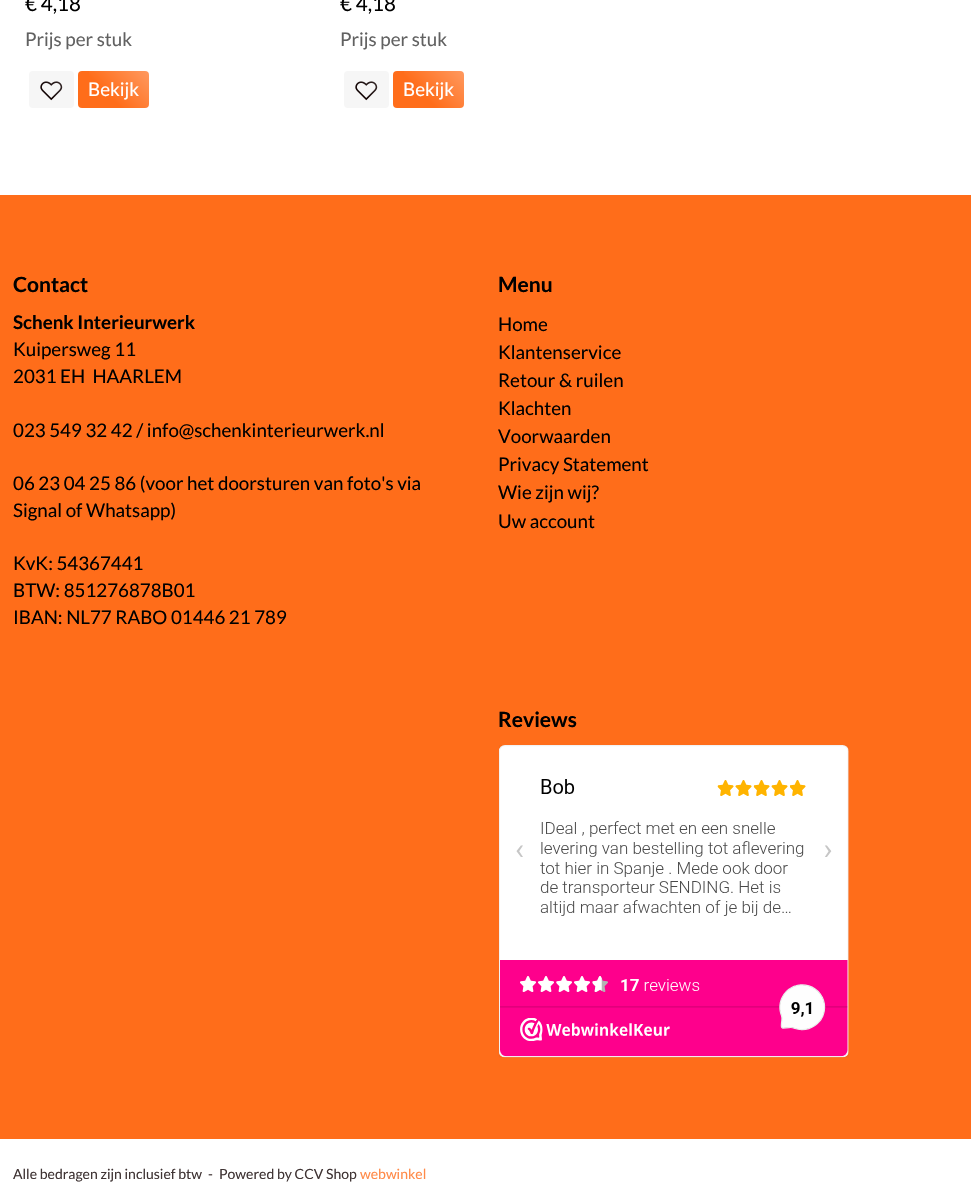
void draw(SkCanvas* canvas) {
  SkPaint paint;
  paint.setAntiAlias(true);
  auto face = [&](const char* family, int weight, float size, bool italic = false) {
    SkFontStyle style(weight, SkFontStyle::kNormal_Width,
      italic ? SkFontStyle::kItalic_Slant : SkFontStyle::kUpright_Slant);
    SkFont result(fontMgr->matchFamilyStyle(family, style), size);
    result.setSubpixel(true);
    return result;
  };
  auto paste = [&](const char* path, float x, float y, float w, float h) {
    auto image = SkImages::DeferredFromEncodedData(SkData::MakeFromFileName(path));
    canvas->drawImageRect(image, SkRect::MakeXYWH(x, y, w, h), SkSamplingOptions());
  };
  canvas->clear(0xffffffff);
  paint.setColor(0xfff6f6f6);
  canvas->drawRoundRect(SkRect::MakeXYWH(29, 71, 45, 37), 4, 4, paint);
  paste("img/1.png", 40, 81, 23, 20);
  {
    const SkColor colors[] = {0x4dffffff, 0x00ffffff};
    const float stops[] = {0, 0.6f};
    const SkPoint ends[] = {{72, 69}, {31, 110}};
    paint.setShader(SkGradientShader::MakeLinear(ends, colors, stops, 2, SkTileMode::kClamp));
    paint.setAlpha(255);
  }
  canvas->drawRect(SkRect::MakeXYWH(41, 81, 22, 16), paint);
  paint.setShader(nullptr);
  paint.setColor(0xffff6d1a);
  canvas->drawRoundRect(SkRect::MakeXYWH(78, 71, 71, 37), 4, 4, paint);
  {
    const SkColor colors[] = {0x4dffffff, 0x00ffffff};
    const float stops[] = {0, 0.6f};
    const SkPoint ends[] = {{140, 62}, {86, 116}};
    paint.setShader(SkGradientShader::MakeLinear(ends, colors, stops, 2, SkTileMode::kClamp));
    paint.setAlpha(255);
  }
  canvas->drawRect(SkRect::MakeXYWH(89, 71, 60, 37), paint);
  paint.setShader(nullptr);
  paint.setColor(0xfff6f6f6);
  canvas->drawRoundRect(SkRect::MakeXYWH(344, 71, 45, 37), 4, 4, paint);
  paste("img/1.png", 355, 81, 23, 20);
  {
    const SkColor colors[] = {0x4dffffff, 0x00ffffff};
    const float stops[] = {0, 0.6f};
    const SkPoint ends[] = {{387, 69}, {346, 110}};
    paint.setShader(SkGradientShader::MakeLinear(ends, colors, stops, 2, SkTileMode::kClamp));
    paint.setAlpha(255);
  }
  canvas->drawRect(SkRect::MakeXYWH(356, 81, 22, 16), paint);
  paint.setShader(nullptr);
  paint.setColor(0xffff6d1a);
  canvas->drawRoundRect(SkRect::MakeXYWH(393, 71, 71, 37), 4, 4, paint);
  {
    const SkColor colors[] = {0x4dffffff, 0x00ffffff};
    const float stops[] = {0, 0.6f};
    const SkPoint ends[] = {{455, 62}, {401, 116}};
    paint.setShader(SkGradientShader::MakeLinear(ends, colors, stops, 2, SkTileMode::kClamp));
    paint.setAlpha(255);
  }
  canvas->drawRect(SkRect::MakeXYWH(404, 71, 60, 37), paint);
  paint.setShader(nullptr);
  paint.setColor(0xffff6d1a);
  canvas->drawRect(SkRect::MakeXYWH(0, 195, 971, 944), paint);
  paste("img/2.png", 498, 745, 351, 313);
  auto f0 = face("Lato", 400, 20.5f);
  paint.setColor(0xff000000);
  canvas->drawString("€ 4,18", 25, 11, f0, paint);
  auto f1 = face("Lato", 400, 18.75f);
  paint.setColor(0xff616161);
  canvas->drawString("Prijs per stuk", 25, 46, f1, paint);
  paint.setColor(0xffffffff);
  canvas->drawString("Bekijk", 88, 96, f1, paint);
  paint.setColor(0xff000000);
  canvas->drawString("€ 4,18", 340, 11, f0, paint);
  paint.setColor(0xff616161);
  canvas->drawString("Prijs per stuk", 340, 46, f1, paint);
  paint.setColor(0xffffffff);
  canvas->drawString("Bekijk", 403, 96, f1, paint);
  auto f2 = face("Lato", 700, 21);
  paint.setColor(0xff000000);
  canvas->drawString("Contact", 13, 292, f2, paint);
  auto f3 = face("Lato", 700, 18.75f);
  canvas->drawString("Schenk Interieurwerk", 13, 329, f3, paint);
  {
    const struct { const char* s; float x, y; } items[] = {
      {"Kuipersweg 11", 13, 356},
      {"2031 EH  HAARLEM", 13, 383},
      {"023 549 32 42 / info@schenkinterieurwerk.nl", 13, 437},
      {"06 23 04 25 86 (voor het doorsturen van foto's via", 13, 490},
      {"Signal of Whatsapp)", 13, 517},
      {"KvK: 54367441", 13, 570},
      {"BTW: 851276878B01", 13, 597},
      {"IBAN: NL77 RABO 01446 21 789", 13, 624},
    };
    for (auto [s, x, y] : items) {
      canvas->drawString(s, x, y, f1, paint);
    }
  }
  canvas->drawString("Menu", 498, 292, f2, paint);
  {
    const struct { const char* s; float x, y; } items[] = {
      {"Home", 498, 331},
      {"Klantenservice", 498, 359},
      {"Retour & ruilen", 498, 387},
      {"Klachten", 498, 415},
      {"Voorwaarden", 498, 443},
      {"Privacy Statement", 498, 471},
      {"Wie zijn wij?", 498, 499},
      {"Uw account", 498, 528},
    };
    for (auto [s, x, y] : items) {
      canvas->drawString(s, x, y, f1, paint);
    }
  }
  canvas->drawString("Reviews", 498, 727, f2, paint);
  auto f4 = face("Lato", 400, 14);
  paint.setColor(0xff3f3434);
  {
    const struct { const char* s; float x, y; } items[] = {
      {"Alle bedragen zijn inclusief btw", 13, 1179},
      {"-", 208, 1179},
      {"Powered by CCV Shop", 219, 1179},
    };
    for (auto [s, x, y] : items) {
      canvas->drawString(s, x, y, f4, paint);
    }
  }
  paint.setColor(0xffff8a48);
  canvas->drawString("webwinkel", 360, 1179, f4, paint);
}
